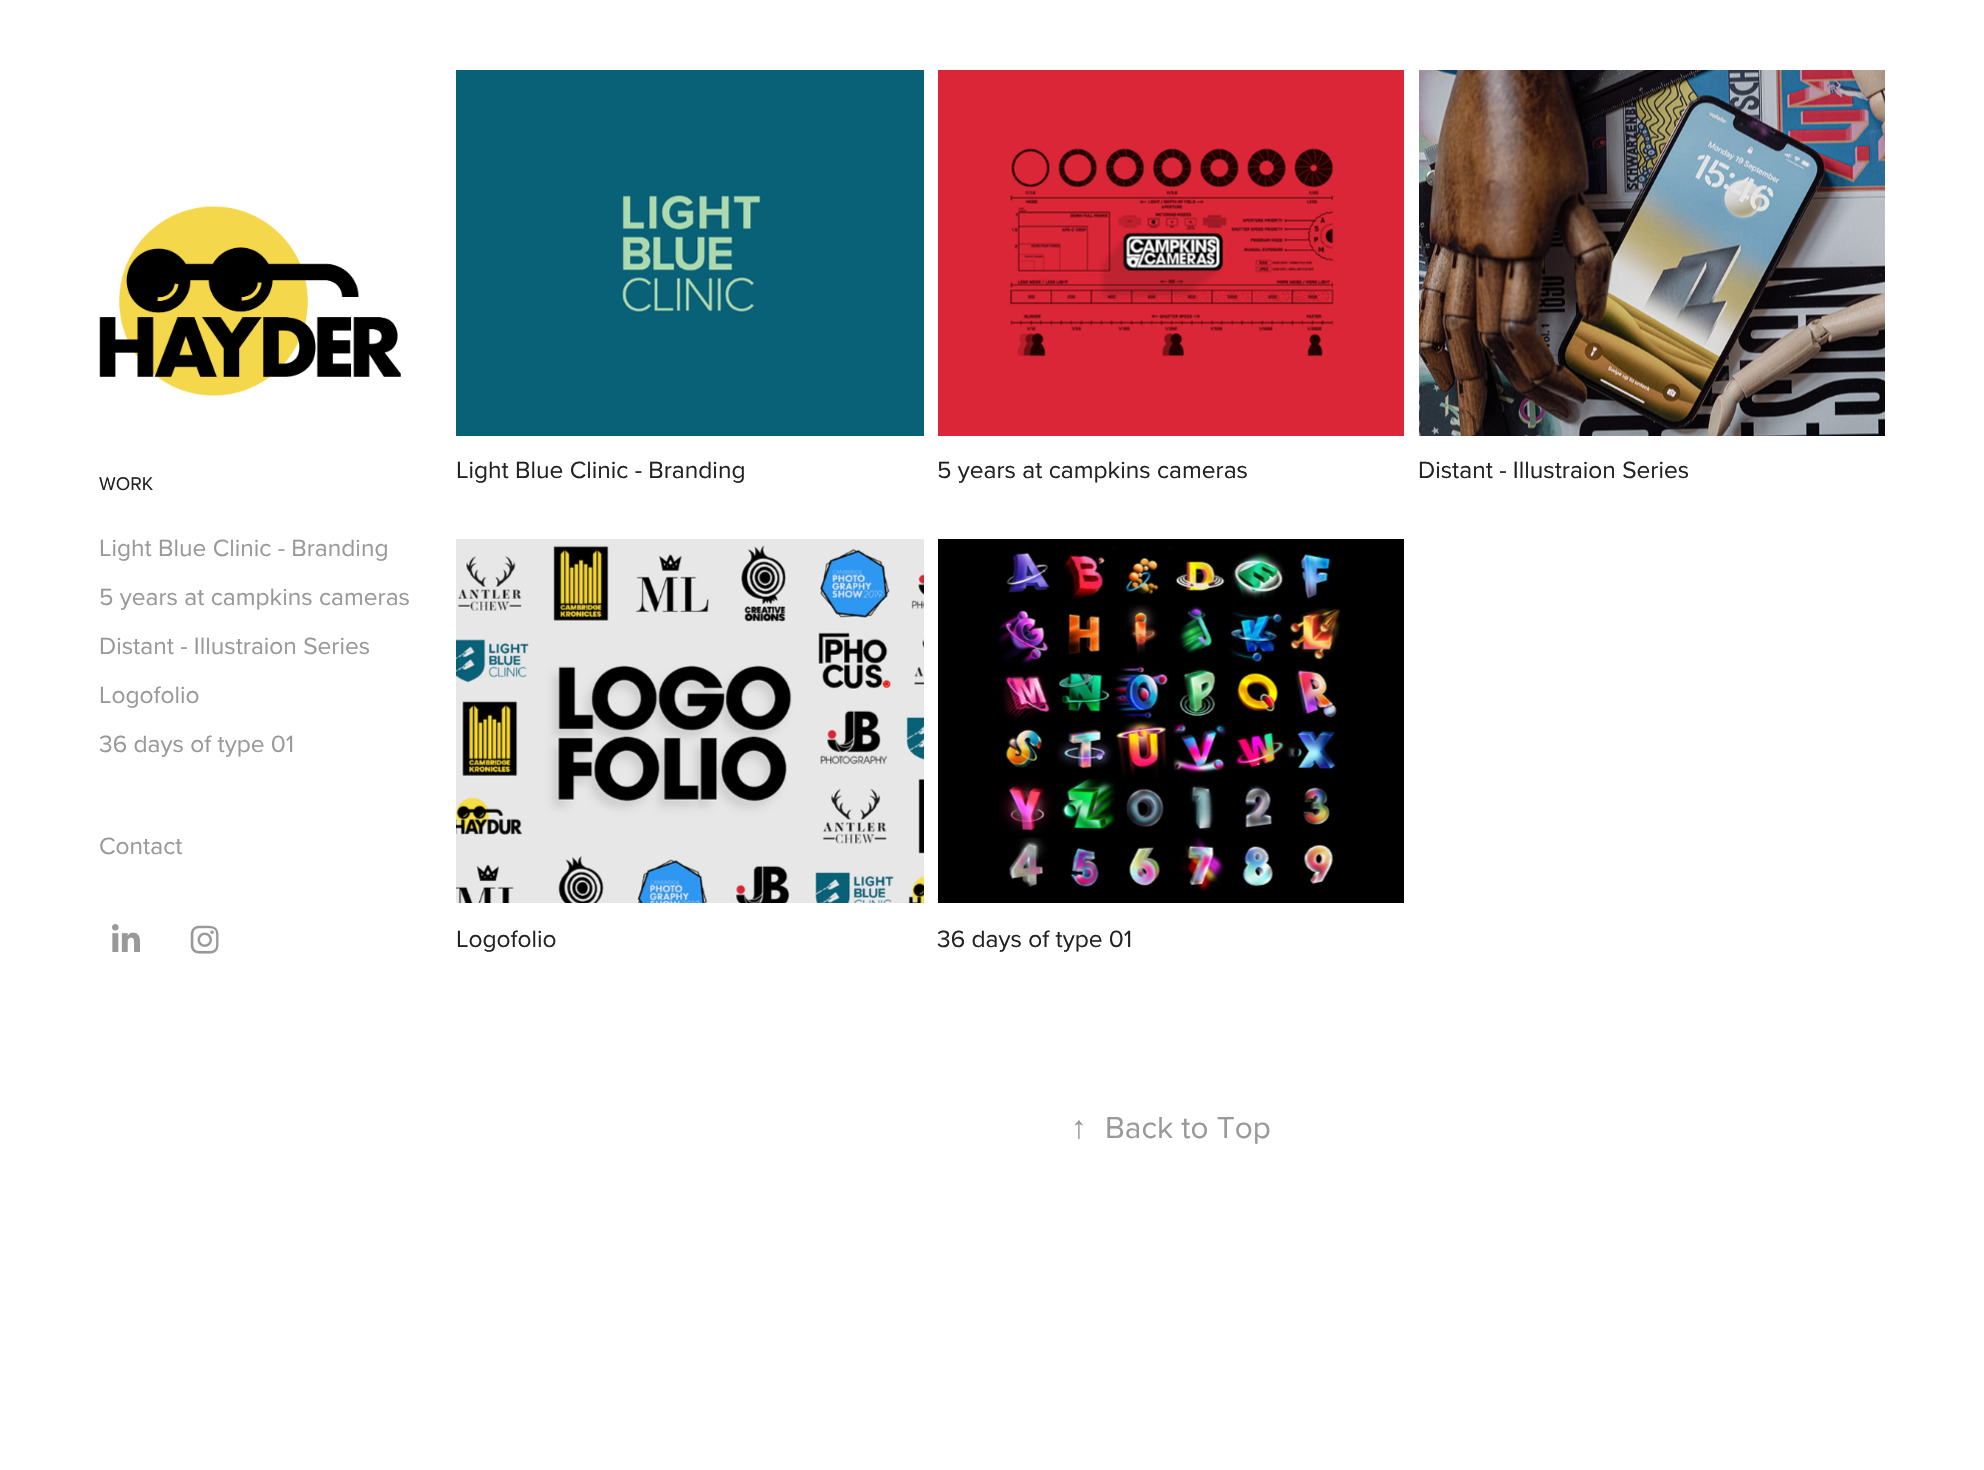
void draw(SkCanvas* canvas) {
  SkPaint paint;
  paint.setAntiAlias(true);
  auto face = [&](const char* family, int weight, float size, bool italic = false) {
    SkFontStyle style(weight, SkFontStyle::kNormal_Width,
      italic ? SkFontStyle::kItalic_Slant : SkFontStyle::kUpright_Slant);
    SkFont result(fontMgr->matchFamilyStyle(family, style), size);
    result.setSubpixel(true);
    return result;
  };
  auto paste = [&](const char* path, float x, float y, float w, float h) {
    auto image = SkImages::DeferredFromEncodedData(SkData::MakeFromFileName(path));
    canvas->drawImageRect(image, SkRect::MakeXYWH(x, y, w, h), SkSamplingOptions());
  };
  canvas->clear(0xffffffff);
  paste("img/1.png", 99, 206, 302, 190);
  paste("img/2.png", 112, 924, 28, 28);
  paste("img/3.png", 190, 925, 29, 29);
  paste("img/4.png", 456, 70, 468, 366);
  paste("img/5.png", 938, 70, 466, 366);
  paste("img/6.png", 1419, 70, 466, 366);
  paste("img/7.png", 456, 539, 468, 364);
  paste("img/8.png", 938, 539, 466, 364);
  auto f0 = face("Proxima Nova", 400, 19);
  paint.setColor(0xff222222);
  canvas->drawString("WORK", 99, 490, f0, paint);
  auto f1 = face("Proxima Nova", 400, 24.5f);
  paint.setColor(0xff999999);
  {
    const struct { const char* s; float x, y; } items[] = {
      {"Light Blue Clinic - Branding", 99, 556},
      {"5 years at campkins cameras", 99, 605},
      {"Distant - Illustraion Series", 99, 654},
      {"Logofolio", 99, 703},
      {"36 days of type 01", 99, 752},
      {"Contact", 99, 854},
    };
    for (auto [s, x, y] : items) {
      canvas->drawString(s, x, y, f1, paint);
    }
  }
  paint.setColor(0xff222222);
  {
    const struct { const char* s; float x, y; } items[] = {
      {"Light Blue Clinic - Branding", 456, 478},
      {"5 years at campkins cameras", 937, 478},
      {"Distant - Illustraion Series", 1418, 478},
      {"Logofolio", 456, 947},
      {"36 days of type 01", 937, 947},
    };
    for (auto [s, x, y] : items) {
      canvas->drawString(s, x, y, f1, paint);
    }
  }
  auto f2 = face("Liberation Serif", 400, 31.5f);
  paint.setColor(0xff999999);
  canvas->drawString("↑", 1071, 1138, f2, paint);
  auto f3 = face("Proxima Nova", 400, 31.5f);
  canvas->drawString("Back to Top", 1105, 1138, f3, paint);
}
